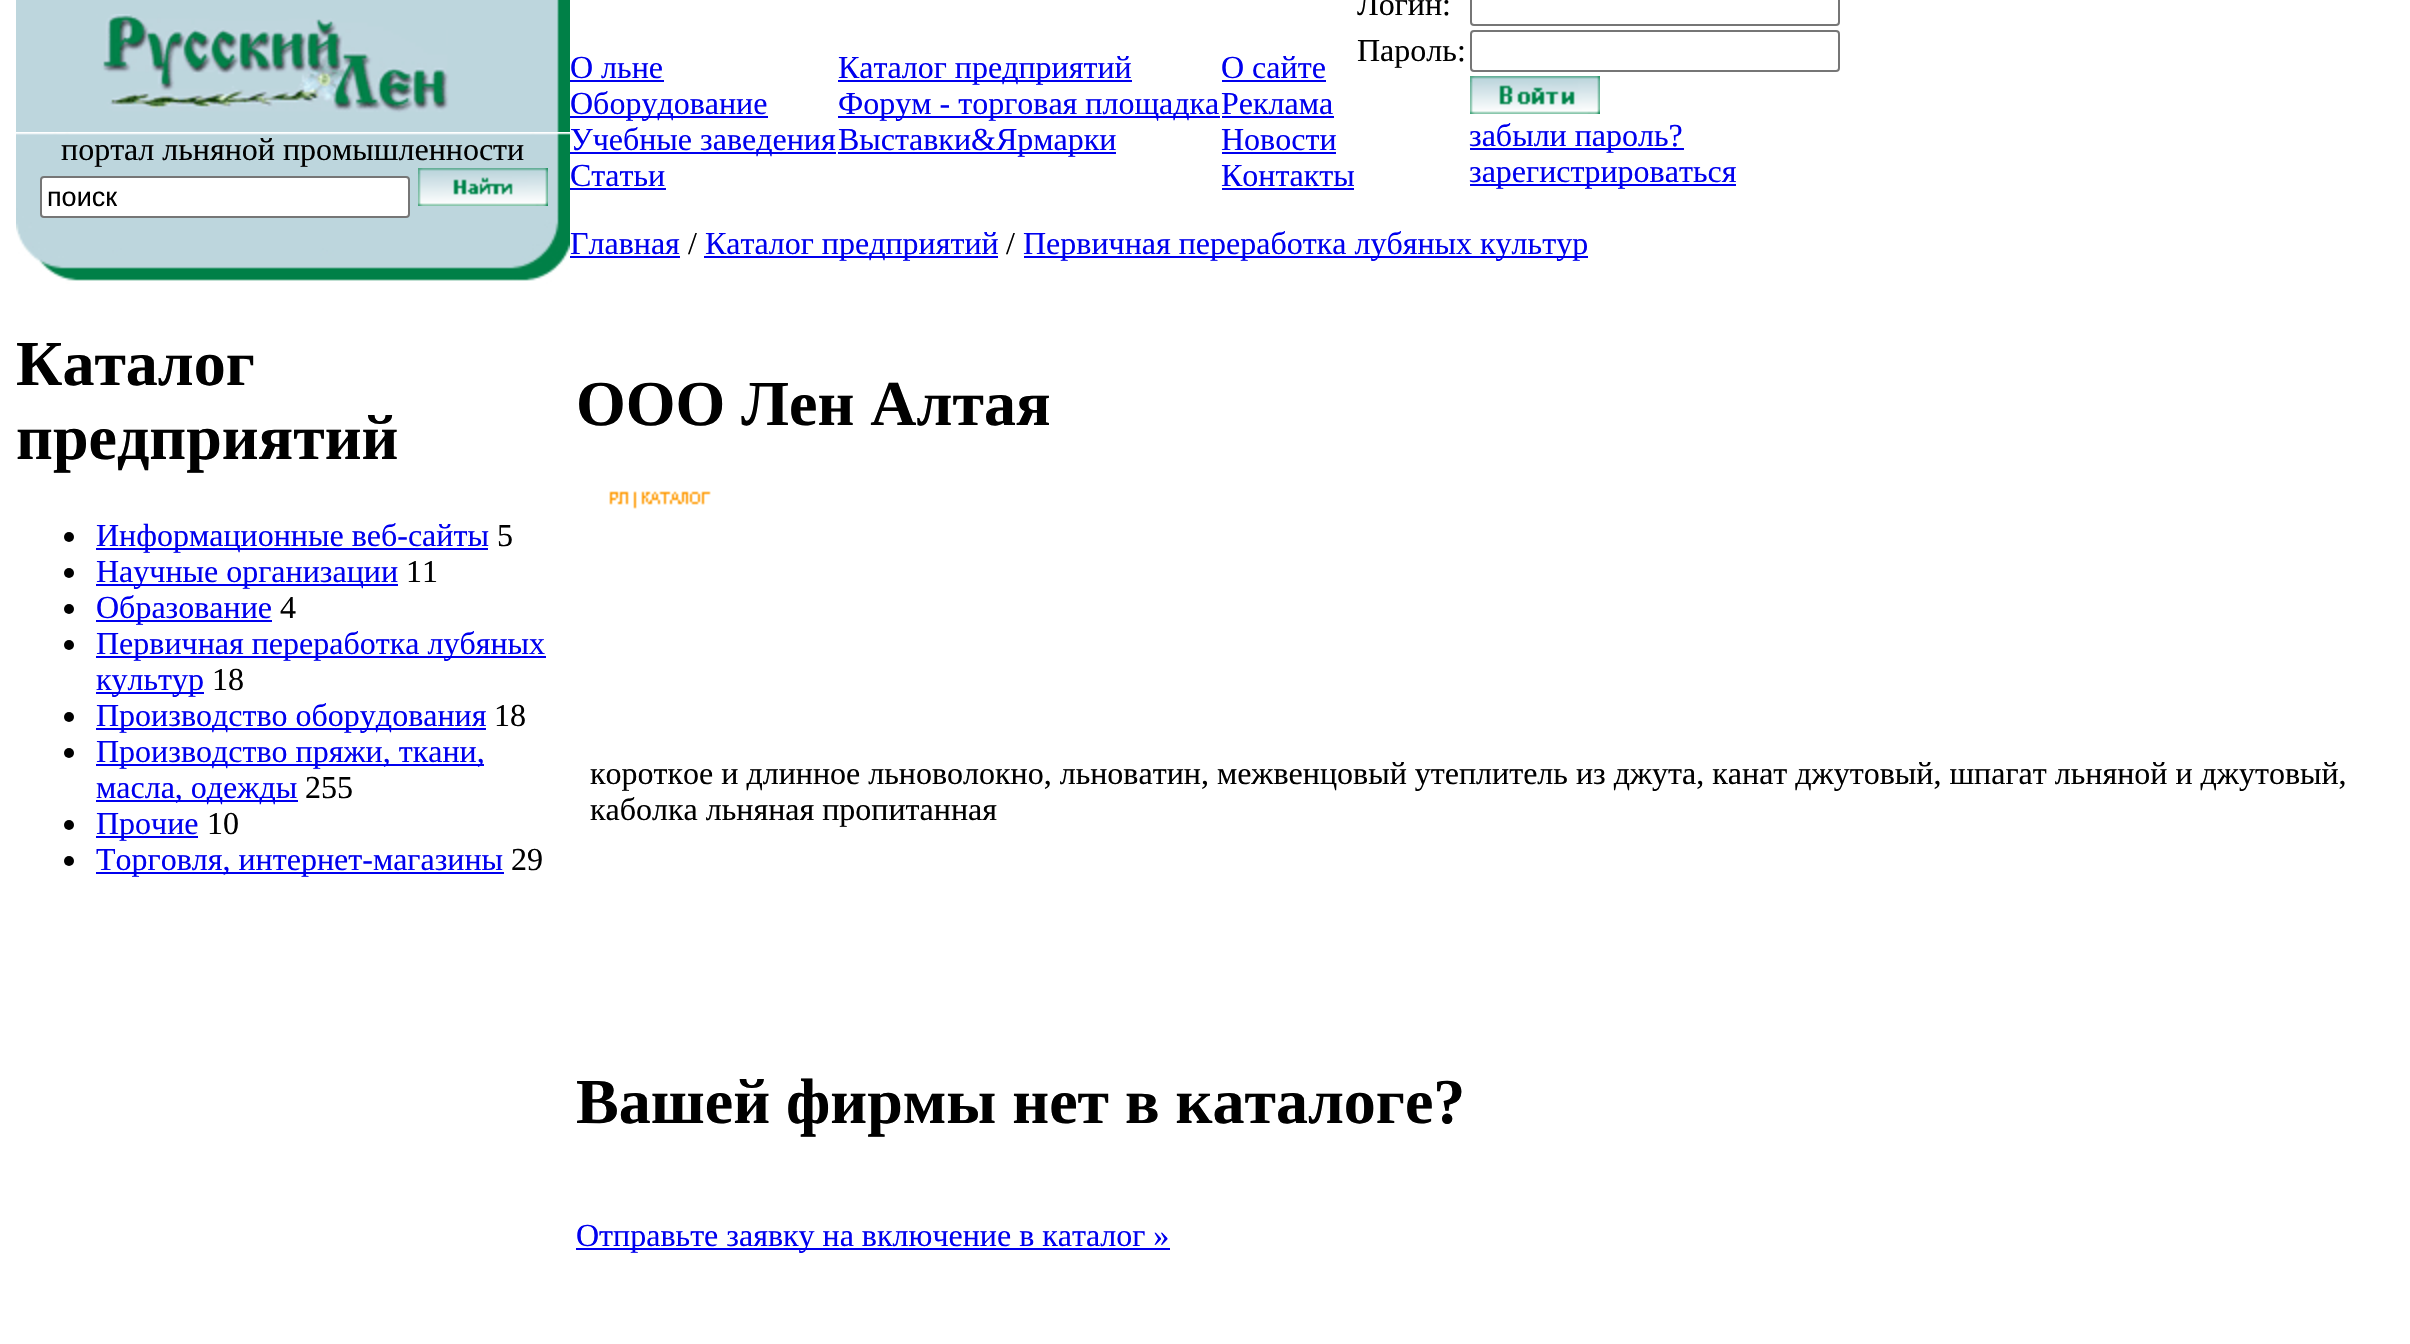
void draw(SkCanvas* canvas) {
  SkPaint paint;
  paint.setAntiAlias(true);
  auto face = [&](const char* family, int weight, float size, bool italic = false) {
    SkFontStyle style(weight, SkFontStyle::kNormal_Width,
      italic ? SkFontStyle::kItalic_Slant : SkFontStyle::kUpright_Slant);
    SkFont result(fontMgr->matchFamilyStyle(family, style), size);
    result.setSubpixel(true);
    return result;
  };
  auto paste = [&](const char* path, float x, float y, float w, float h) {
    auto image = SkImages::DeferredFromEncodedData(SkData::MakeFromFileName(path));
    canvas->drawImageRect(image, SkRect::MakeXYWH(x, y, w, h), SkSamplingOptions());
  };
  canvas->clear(0xffffffff);
  paste("img/1.png", 16, 0, 554, 284);
  paste("img/2.png", 16, 14, 554, 118);
  paint.setColor(0xffffffff);
  canvas->drawRoundRect(SkRect::MakeXYWH(41, 177, 368, 40), 3, 3, paint);
  paint.setStroke(true);
  paint.setStrokeWidth(2);
  paint.setColor(0xff767676);
  canvas->drawRoundRect(SkRect::MakeXYWH(41, 177, 368, 40), 3, 3, paint);
  paste("img/3.png", 418, 168, 130, 38);
  paint.setStroke(false);
  {
    const struct { float x, y, w, h; SkColor color; } items[] = {
      {570, 80, 94, 2, 0xff0000ee},
      {570, 116, 198, 2, 0xff0000ee},
      {570, 152, 266, 2, 0xff0000ee},
      {570, 188, 96, 2, 0xff0000ee},
      {838, 80, 294, 2, 0xff0000ee},
      {838, 116, 382, 2, 0xff0000ee},
      {838, 152, 278, 2, 0xff0000ee},
      {1222, 80, 104, 2, 0xff0000ee},
      {1222, 116, 112, 2, 0xff0000ee},
      {1222, 152, 114, 2, 0xff0000ee},
      {1222, 188, 132, 2, 0xff0000ee},
    };
    for (auto [x, y, w, h, color] : items) {
      paint.setColor(color);
      canvas->drawRect(SkRect::MakeXYWH(x, y, w, h), paint);
    }
  }
  paint.setStroke(true);
  paint.setColor(0xff767676);
  canvas->drawRoundRect(SkRect::MakeXYWH(1471, -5, 368, 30), 3, 3, paint);
  canvas->drawRoundRect(SkRect::MakeXYWH(1471, 31, 368, 40), 3, 3, paint);
  paste("img/4.png", 1470, 76, 130, 38);
  paint.setStroke(false);
  {
    const struct { float x, y, w, h; SkColor color; } items[] = {
      {1470, 148, 214, 2, 0xff0000ee},
      {1470, 184, 266, 2, 0xff0000ee},
      {570, 256, 110, 2, 0xff0000ee},
      {704, 256, 294, 2, 0xff0000ee},
      {1024, 256, 564, 2, 0xff0000ee},
    };
    for (auto [x, y, w, h, color] : items) {
      paint.setColor(color);
      canvas->drawRect(SkRect::MakeXYWH(x, y, w, h), paint);
    }
  }
  paint.setColor(0xff000000);
  canvas->drawCircle(69, 537, 5, paint);
  paint.setColor(0xff0000ee);
  canvas->drawRect(SkRect::MakeXYWH(96, 548, 392, 2), paint);
  paint.setColor(0xff000000);
  canvas->drawCircle(69, 573, 5, paint);
  paint.setColor(0xff0000ee);
  canvas->drawRect(SkRect::MakeXYWH(96, 584, 302, 2), paint);
  paint.setColor(0xff000000);
  canvas->drawCircle(69, 609, 5, paint);
  paint.setColor(0xff0000ee);
  canvas->drawRect(SkRect::MakeXYWH(96, 620, 176, 2), paint);
  paint.setColor(0xff000000);
  canvas->drawCircle(69, 645, 5, paint);
  paint.setColor(0xff0000ee);
  canvas->drawRect(SkRect::MakeXYWH(96, 656, 450, 2), paint);
  canvas->drawRect(SkRect::MakeXYWH(96, 692, 108, 2), paint);
  paint.setColor(0xff000000);
  canvas->drawCircle(69, 717, 5, paint);
  paint.setColor(0xff0000ee);
  canvas->drawRect(SkRect::MakeXYWH(96, 728, 390, 2), paint);
  paint.setColor(0xff000000);
  canvas->drawCircle(69, 753, 5, paint);
  paint.setColor(0xff0000ee);
  canvas->drawRect(SkRect::MakeXYWH(96, 764, 388, 2), paint);
  canvas->drawRect(SkRect::MakeXYWH(96, 800, 202, 2), paint);
  paint.setColor(0xff000000);
  canvas->drawCircle(69, 825, 5, paint);
  paint.setColor(0xff0000ee);
  canvas->drawRect(SkRect::MakeXYWH(96, 836, 102, 2), paint);
  paint.setColor(0xff000000);
  canvas->drawCircle(69, 861, 5, paint);
  paint.setColor(0xff0000ee);
  canvas->drawRect(SkRect::MakeXYWH(96, 872, 408, 2), paint);
  paste("img/5.png", 609, 491, 102, 18);
  canvas->drawRect(SkRect::MakeXYWH(576, 1248, 594, 2), paint);
  auto f0 = face("Liberation Serif", 400, 32);
  paint.setColor(0xff000000);
  canvas->drawString("портал льняной промышленности", 61, 160, f0, paint);
  auto f1 = face("Liberation Sans", 400, 27);
  canvas->drawString("поиск", 47, 206, f1, paint);
  paint.setColor(0xff0000ee);
  {
    const struct { const char* s; float x, y; } items[] = {
      {"О льне", 570, 78},
      {"Оборудование", 570, 114},
      {"Учебные заведения", 570, 150},
      {"Статьи", 570, 186},
      {"Каталог предприятий", 838, 78},
      {"Форум - торговая площадка", 838, 114},
      {"Выставки&Ярмарки", 838, 150},
      {"О сайте", 1221, 78},
      {"Реклама", 1221, 114},
      {"Новости", 1221, 150},
      {"Контакты", 1221, 186},
    };
    for (auto [s, x, y] : items) {
      canvas->drawString(s, x, y, f0, paint);
    }
  }
  paint.setColor(0xff000000);
  canvas->drawString("Логин:", 1357, 15, f0, paint);
  canvas->drawString("Пароль:", 1357, 61, f0, paint);
  paint.setColor(0xff0000ee);
  {
    const struct { const char* s; float x, y; } items[] = {
      {"забыли пароль?", 1469, 146},
      {"зарегистрироваться", 1469, 182},
      {"Главная", 570, 254},
    };
    for (auto [s, x, y] : items) {
      canvas->drawString(s, x, y, f0, paint);
    }
  }
  paint.setColor(0xff000000);
  canvas->drawString("/", 688, 254, f0, paint);
  paint.setColor(0xff0000ee);
  canvas->drawString("Каталог предприятий", 705, 254, f0, paint);
  paint.setColor(0xff000000);
  canvas->drawString("/", 1006, 254, f0, paint);
  paint.setColor(0xff0000ee);
  canvas->drawString("Первичная переработка лубяных культур", 1023, 254, f0, paint);
  auto f2 = face("Liberation Serif", 700, 64);
  paint.setColor(0xff000000);
  canvas->drawString("Каталог", 16, 385, f2, paint);
  canvas->drawString("предприятий", 16, 459, f2, paint);
  paint.setColor(0xff0000ee);
  canvas->drawString("Информационные веб-сайты", 96, 546, f0, paint);
  paint.setColor(0xff000000);
  canvas->drawString("5", 497, 546, f0, paint);
  paint.setColor(0xff0000ee);
  canvas->drawString("Научные организации", 96, 582, f0, paint);
  paint.setColor(0xff000000);
  canvas->drawString("11", 406, 582, f0, paint);
  paint.setColor(0xff0000ee);
  canvas->drawString("Образование", 96, 618, f0, paint);
  paint.setColor(0xff000000);
  canvas->drawString("4", 280, 618, f0, paint);
  paint.setColor(0xff0000ee);
  canvas->drawString("Первичная переработка лубяных", 96, 654, f0, paint);
  canvas->drawString("культур", 96, 690, f0, paint);
  paint.setColor(0xff000000);
  canvas->drawString("18", 212, 690, f0, paint);
  paint.setColor(0xff0000ee);
  canvas->drawString("Производство оборудования", 96, 726, f0, paint);
  paint.setColor(0xff000000);
  canvas->drawString("18", 494, 726, f0, paint);
  paint.setColor(0xff0000ee);
  canvas->drawString("Производство пряжи, ткани,", 96, 762, f0, paint);
  canvas->drawString("масла, одежды", 96, 798, f0, paint);
  paint.setColor(0xff000000);
  canvas->drawString("255", 305, 798, f0, paint);
  paint.setColor(0xff0000ee);
  canvas->drawString("Прочие", 96, 834, f0, paint);
  paint.setColor(0xff000000);
  canvas->drawString("10", 207, 834, f0, paint);
  paint.setColor(0xff0000ee);
  canvas->drawString("Торговля, интернет-магазины", 96, 870, f0, paint);
  paint.setColor(0xff000000);
  canvas->drawString("29", 511, 870, f0, paint);
  canvas->drawString("ООО Лен Алтая", 576, 425, f2, paint);
  canvas->drawString("короткое и длинное льноволокно, льноватин, межвенцовый утеплитель из джута, канат джутовый, шпагат льняной и джутовый,", 590, 784, f0, paint);
  canvas->drawString("каболка льняная пропитанная", 590, 820, f0, paint);
  canvas->drawString("Вашей фирмы нет в каталоге?", 576, 1123, f2, paint);
  paint.setColor(0xff0000ee);
  canvas->drawString("Отправьте заявку на включение в каталог »", 576, 1246, f0, paint);
}
